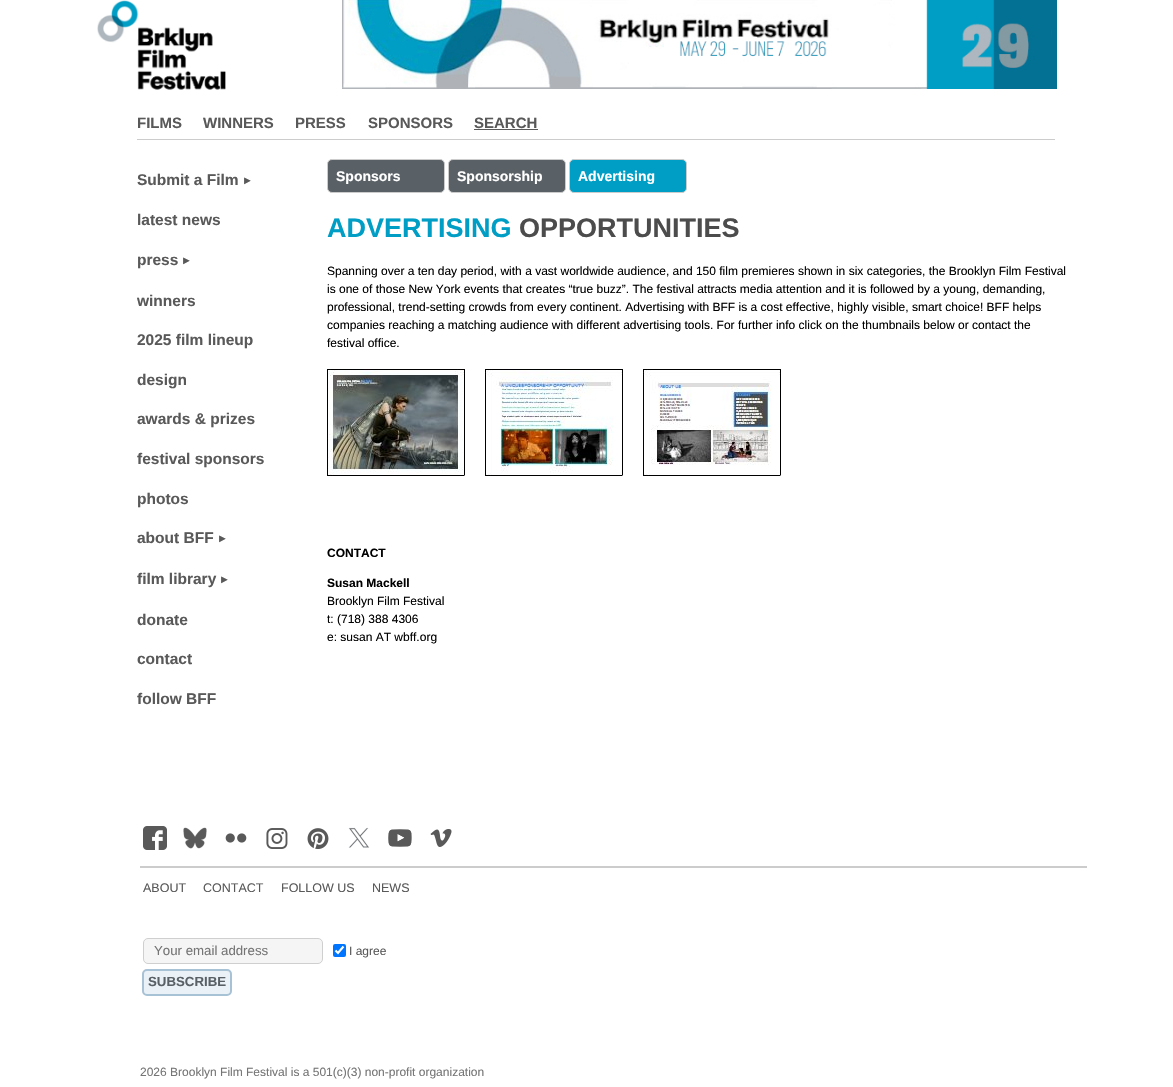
void draw(SkCanvas* canvas) {
  SkPaint paint;
  paint.setAntiAlias(true);
  auto face = [&](const char* family, int weight, float size, bool italic = false) {
    SkFontStyle style(weight, SkFontStyle::kNormal_Width,
      italic ? SkFontStyle::kItalic_Slant : SkFontStyle::kUpright_Slant);
    SkFont result(fontMgr->matchFamilyStyle(family, style), size);
    result.setSubpixel(true);
    return result;
  };
  auto paste = [&](const char* path, float x, float y, float w, float h) {
    auto image = SkImages::DeferredFromEncodedData(SkData::MakeFromFileName(path));
    canvas->drawImageRect(image, SkRect::MakeXYWH(x, y, w, h), SkSamplingOptions());
  };
  auto shape = [&](const char* data, bool evenOdd = false) {
    SkPath result = *SkParsePath::FromSVGString(data);
    if (evenOdd) result.setFillType(SkPathFillType::kEvenOdd);
    return result;
  };
  canvas->clear(0xffffffff);
  paste("img/1.png", 97, 0, 129, 90);
  paste("img/2.png", 342, 0, 715, 89);
  paint.setColor(0xffcccccc);
  canvas->drawRect(SkRect::MakeXYWH(137, 139, 918, 1), paint);
  paint.setColor(0xff595959);
  canvas->drawRect(SkRect::MakeXYWH(474, 129, 64, 1), paint);
  paint.setColor(0xff596066);
  canvas->drawRoundRect(SkRect::MakeXYWH(327.5f, 159.5f, 117, 33), 4.5f, 4.5f, paint);
  paint.setStroke(true);
  paint.setStrokeWidth(1);
  paint.setColor(0xffcccccc);
  canvas->drawRoundRect(SkRect::MakeXYWH(327.5f, 159.5f, 117, 33), 4.5f, 4.5f, paint);
  paint.setStroke(false);
  paint.setColor(0xff596066);
  canvas->drawRoundRect(SkRect::MakeXYWH(448.5f, 159.5f, 117, 33), 4.5f, 4.5f, paint);
  paint.setStroke(true);
  paint.setColor(0xffcccccc);
  canvas->drawRoundRect(SkRect::MakeXYWH(448.5f, 159.5f, 117, 33), 4.5f, 4.5f, paint);
  paint.setStroke(false);
  paint.setColor(0xff009dc4);
  canvas->drawRoundRect(SkRect::MakeXYWH(569.5f, 159.5f, 117, 33), 4.5f, 4.5f, paint);
  paint.setStroke(true);
  paint.setColor(0xffcccccc);
  canvas->drawRoundRect(SkRect::MakeXYWH(569.5f, 159.5f, 117, 33), 4.5f, 4.5f, paint);
  paste("img/3.png", 327, 369, 138, 107);
  paste("img/4.png", 485, 369, 138, 107);
  paste("img/5.png", 643, 369, 138, 107);
  paste("img/6.png", 143, 826, 24, 24);
  paste("img/7.png", 183, 827, 24, 22);
  paste("img/8.png", 225, 833, 22, 10);
  paste("img/9.png", 266, 828, 22, 21);
  paste("img/10.png", 307, 828, 22, 21);
  paste("img/11.png", 348, 827, 22, 21);
  paste("img/12.png", 388, 829, 24, 18);
  paste("img/13.png", 430, 829, 22, 18);
  paint.setStroke(false);
  canvas->drawRect(SkRect::MakeXYWH(140, 866, 947, 2), paint);
  paint.setColor(0xfff5f5f5);
  canvas->drawRoundRect(SkRect::MakeXYWH(143.5f, 938.5f, 179, 25), 4.5f, 4.5f, paint);
  paint.setStroke(true);
  paint.setColor(0xffcfcfcf);
  canvas->drawRoundRect(SkRect::MakeXYWH(143.5f, 938.5f, 179, 25), 4.5f, 4.5f, paint);
  paint.setStroke(false);
  paint.setColor(0xff0075ff);
  canvas->drawRoundRect(SkRect::MakeXYWH(333, 944, 13, 13), 2, 2, paint);
  paint.setStroke(true);
  paint.setStrokeWidth(2.1f);
  paint.setColor(0xffffffff);
  canvas->drawPath(shape("M335.5 950.5L338 953L343.5 946.5"), paint);
  paint.setStroke(false);
  paint.setColor(0xffebf2f7);
  canvas->drawRoundRect(SkRect::MakeXYWH(143, 970, 88, 25), 4, 4, paint);
  paint.setStroke(true);
  paint.setStrokeWidth(2);
  paint.setColor(0xffa7c1d5);
  canvas->drawRoundRect(SkRect::MakeXYWH(143, 970, 88, 25), 4, 4, paint);
  auto f0 = face("Liberation Sans", 700, 15);
  paint.setStroke(false);
  paint.setColor(0xff595959);
  {
    const struct { const char* s; float x, y; } items[] = {
      {"FILMS", 137, 128},
      {"WINNERS", 203, 128},
      {"PRESS", 295, 128},
      {"SPONSORS", 368, 128},
      {"SEARCH", 474, 128},
    };
    for (auto [s, x, y] : items) {
      canvas->drawString(s, x, y, f0, paint);
    }
  }
  auto f1 = face("Liberation Sans", 700, 15.5f);
  canvas->drawString("Submit a Film", 137, 185, f1, paint);
  auto f2 = face("Liberation Sans", 700, 11);
  canvas->drawString("►", 242, 184, f2, paint);
  canvas->drawString("latest news", 137, 225, f1, paint);
  canvas->drawString("press", 137, 265, f1, paint);
  canvas->drawString("►", 181, 264, f2, paint);
  {
    const struct { const char* s; float x, y; } items[] = {
      {"winners", 137, 306},
      {"2025 film lineup", 137, 345},
      {"design", 137, 385},
      {"awards & prizes", 137, 424},
      {"festival sponsors", 137, 464},
      {"photos", 137, 504},
      {"about BFF", 137, 543},
    };
    for (auto [s, x, y] : items) {
      canvas->drawString(s, x, y, f1, paint);
    }
  }
  canvas->drawString("►", 217, 542, f2, paint);
  canvas->drawString("film library", 137, 584, f1, paint);
  canvas->drawString("►", 219, 583, f2, paint);
  {
    const struct { const char* s; float x, y; } items[] = {
      {"donate", 137, 625},
      {"contact", 137, 664},
      {"follow BFF", 137, 704},
    };
    for (auto [s, x, y] : items) {
      canvas->drawString(s, x, y, f1, paint);
    }
  }
  auto f3 = face("Liberation Sans", 700, 14);
  paint.setColor(0xffffffff);
  {
    const struct { const char* s; float x, y; } items[] = {
      {"Sponsors", 336, 181},
      {"Sponsorship", 457, 181},
      {"Advertising", 578, 181},
    };
    for (auto [s, x, y] : items) {
      canvas->drawString(s, x, y, f3, paint);
    }
  }
  auto f4 = face("Liberation Sans", 700, 27);
  paint.setColor(0xff009dc4);
  canvas->drawString("ADVERTISING", 327, 237, f4, paint);
  paint.setColor(0xff4c4c4c);
  canvas->drawString("OPPORTUNITIES", 519, 237, f4, paint);
  auto f5 = face("Liberation Sans", 400, 12);
  paint.setColor(0xff000000);
  {
    const struct { const char* s; float x, y; } items[] = {
      {"Spanning over a ten day period, with a vast worldwide audience, and 150 film premieres shown in six categories, the Brooklyn Film Festival", 327, 275},
      {"is one of those New York events that creates “true buzz”. The festival attracts media attention and it is followed by a young, demanding,", 327, 293},
      {"professional, trend-setting crowds from every continent. Advertising with BFF is a cost effective, highly visible, smart choice! BFF helps", 327, 311},
      {"companies reaching a matching audience with different advertising tools. For further info click on the thumbnails below or contact the", 327, 329},
      {"festival office.", 327, 347},
    };
    for (auto [s, x, y] : items) {
      canvas->drawString(s, x, y, f5, paint);
    }
  }
  auto f6 = face("Liberation Sans", 700, 12);
  canvas->drawString("CONTACT", 327, 557, f6, paint);
  canvas->drawString("Susan Mackell", 327, 587, f6, paint);
  {
    const struct { const char* s; float x, y; } items[] = {
      {"Brooklyn Film Festival", 327, 605},
      {"t: (718) 388 4306", 327, 623},
      {"e: susan AT wbff.org", 327, 641},
    };
    for (auto [s, x, y] : items) {
      canvas->drawString(s, x, y, f5, paint);
    }
  }
  auto f7 = face("Liberation Sans", 400, 12.5f);
  paint.setColor(0xff595959);
  {
    const struct { const char* s; float x, y; } items[] = {
      {"ABOUT", 143, 892},
      {"CONTACT", 203, 892},
      {"FOLLOW US", 281, 892},
      {"NEWS", 372, 892},
    };
    for (auto [s, x, y] : items) {
      canvas->drawString(s, x, y, f7, paint);
    }
  }
  auto f8 = face("Liberation Sans", 400, 13.25f);
  paint.setColor(0xff757575);
  canvas->drawString("Your email address", 154, 955, f8, paint);
  paint.setColor(0xff595959);
  canvas->drawString("I agree", 349, 955, f5, paint);
  auto f9 = face("Liberation Sans", 700, 13.25f);
  paint.setColor(0xff596066);
  canvas->drawString("SUBSCRIBE", 148, 986, f9, paint);
  paint.setColor(0xff757575);
  canvas->drawString("2026 Brooklyn Film Festival is a 501(c)(3) non-profit organization", 140, 1076, f5, paint);
}
